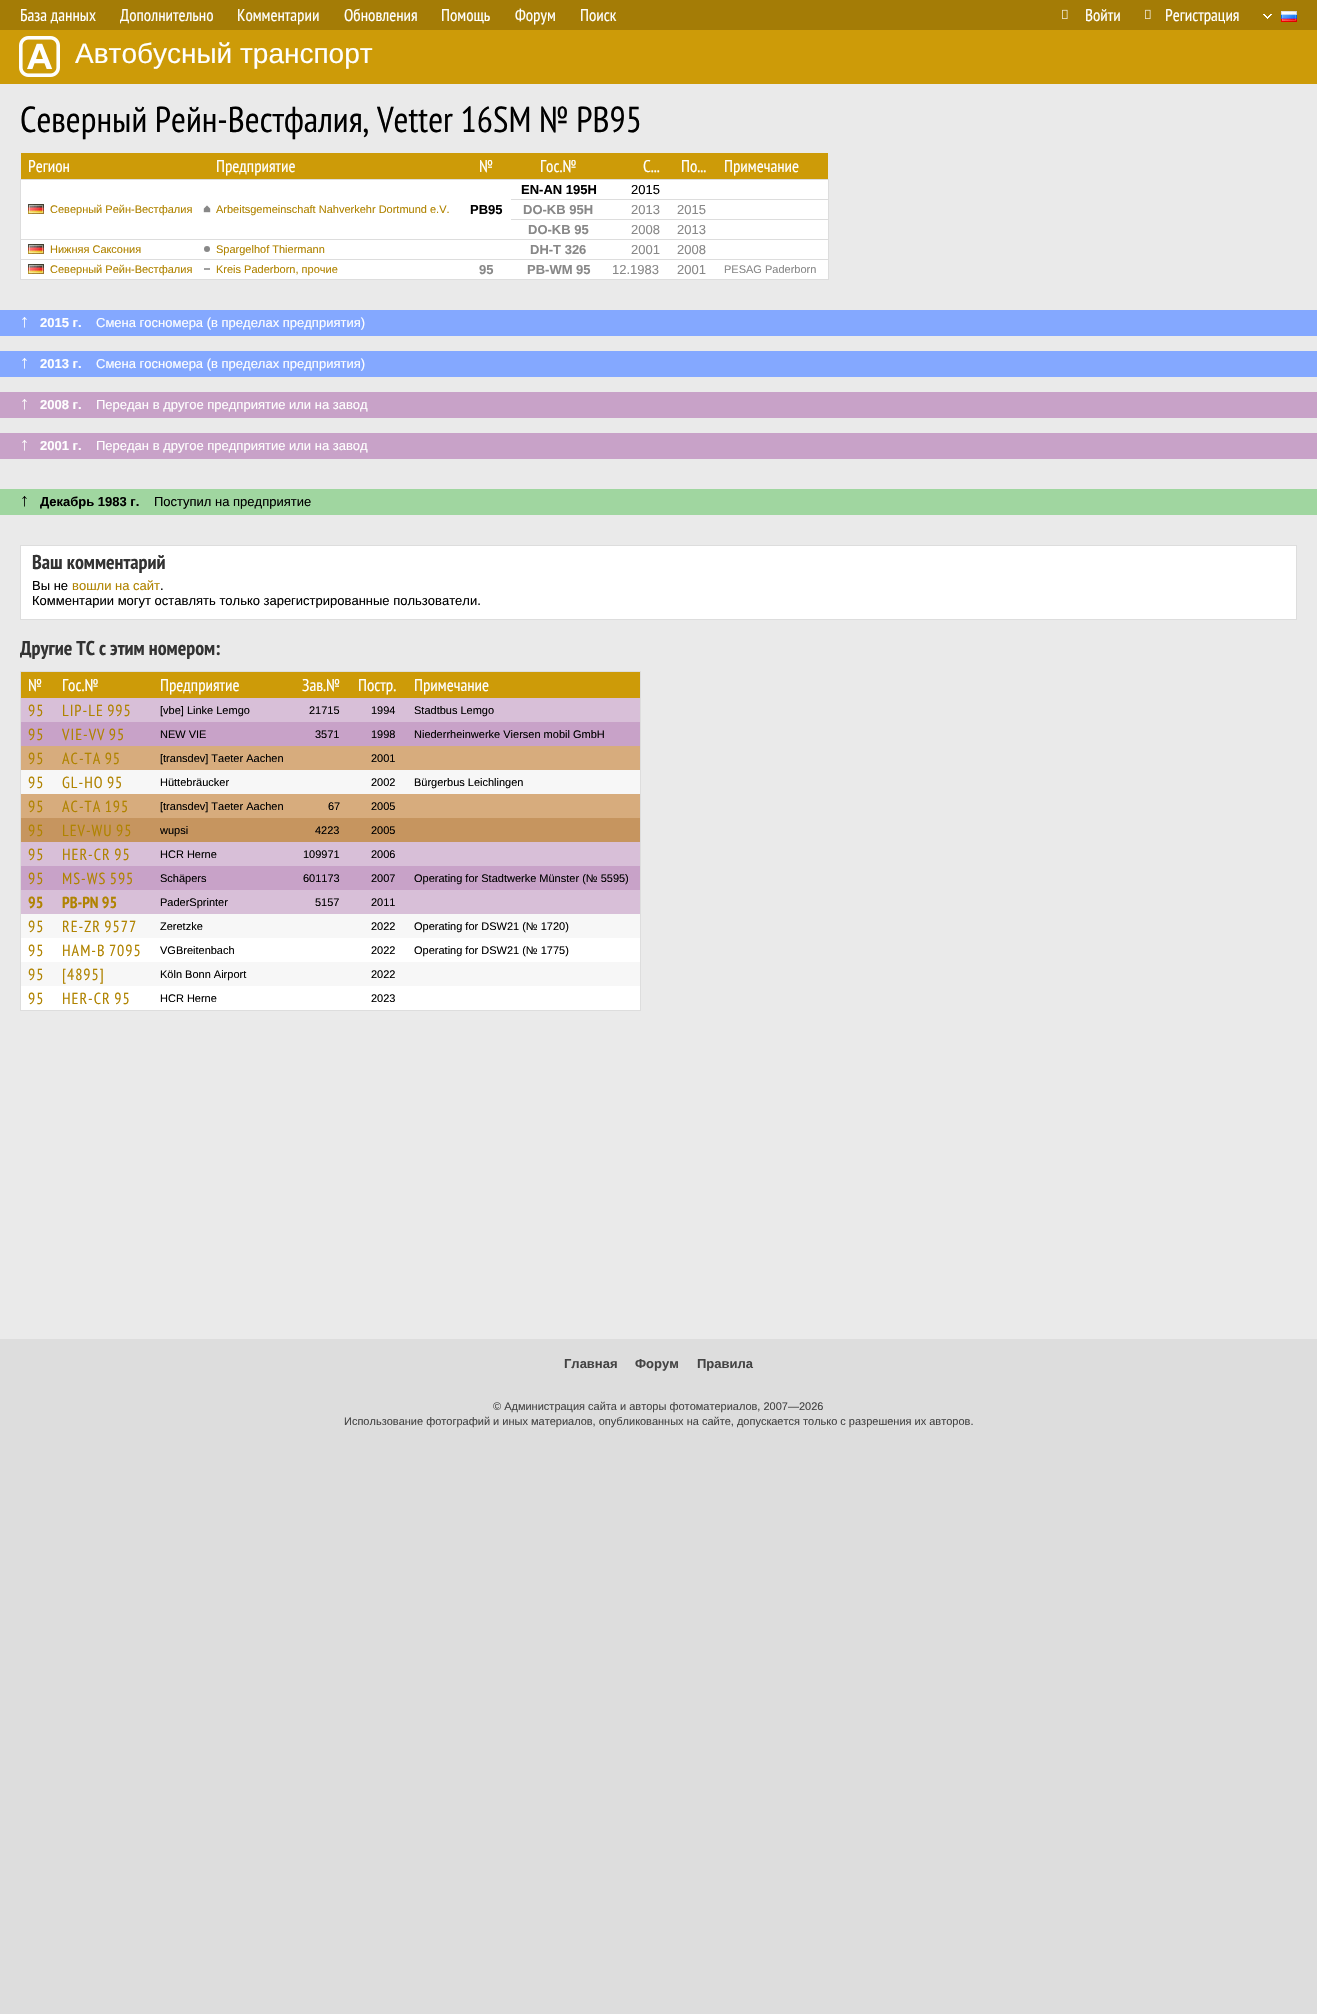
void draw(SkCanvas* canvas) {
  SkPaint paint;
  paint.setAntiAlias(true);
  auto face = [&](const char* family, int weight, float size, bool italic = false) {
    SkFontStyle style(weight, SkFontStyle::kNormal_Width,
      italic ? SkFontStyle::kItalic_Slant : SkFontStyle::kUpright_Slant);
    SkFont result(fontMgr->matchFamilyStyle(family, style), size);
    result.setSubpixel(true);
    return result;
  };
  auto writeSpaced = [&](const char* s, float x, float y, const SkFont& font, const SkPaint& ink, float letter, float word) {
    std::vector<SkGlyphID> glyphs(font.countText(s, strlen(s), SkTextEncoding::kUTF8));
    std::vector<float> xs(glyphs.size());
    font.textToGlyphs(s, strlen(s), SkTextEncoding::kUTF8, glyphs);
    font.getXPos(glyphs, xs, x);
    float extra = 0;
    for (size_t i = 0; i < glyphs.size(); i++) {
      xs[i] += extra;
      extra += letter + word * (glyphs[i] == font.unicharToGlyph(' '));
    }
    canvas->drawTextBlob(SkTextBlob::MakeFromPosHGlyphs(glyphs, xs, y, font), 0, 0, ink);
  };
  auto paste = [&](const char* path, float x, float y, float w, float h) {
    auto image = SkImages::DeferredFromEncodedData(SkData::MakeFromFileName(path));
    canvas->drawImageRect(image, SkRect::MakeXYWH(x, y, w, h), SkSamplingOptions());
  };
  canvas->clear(0xffdddddd);
  paint.setColor(0xffa47c06);
  canvas->drawRect(SkRect::MakeXYWH(0, 0, 1317, 30), paint);
  paste("img/1.png", 1062, 9, 6, 10);
  paste("img/1.png", 1145, 9, 6, 10);
  paste("img/2.png", 1263, 14, 9, 5);
  paste("img/3.png", 1281, 11, 16, 11);
  paint.setColor(0xffcd9b08);
  canvas->drawRect(SkRect::MakeXYWH(0, 30, 1317, 54), paint);
  paste("img/4.png", 19, 36, 41, 41);
  {
    const struct { float x, y, w, h; SkColor color; } items[] = {
      {0, 84, 1317, 1255, 0xffeaeaea},
      {21, 153, 807, 26, 0xffcd9b08},
      {21, 180, 807, 99, 0xffffffff},
      {20, 179, 809, 1, 0xffdddddd},
      {828, 179, 1, 101, 0xffdddddd},
      {20, 279, 809, 1, 0xffdddddd},
      {20, 179, 1, 101, 0xffdddddd},
      {511, 199, 318, 1, 0xffdddddd},
    };
    for (auto [x, y, w, h, color] : items) {
      paint.setColor(color);
      canvas->drawRect(SkRect::MakeXYWH(x, y, w, h), paint);
    }
  }
  paste("img/5.png", 28, 204, 16, 10);
  paste("img/6.png", 203, 205, 8, 8);
  canvas->drawRect(SkRect::MakeXYWH(511, 219, 318, 1), paint);
  canvas->drawRect(SkRect::MakeXYWH(20, 239, 809, 1), paint);
  paste("img/5.png", 28, 244, 16, 10);
  paint.setColor(0xff888888);
  canvas->drawCircle(207, 249, 3, paint);
  paint.setColor(0xffdddddd);
  canvas->drawRect(SkRect::MakeXYWH(20, 259, 809, 1), paint);
  paste("img/5.png", 28, 264, 16, 10);
  {
    const struct { float x, y, w, h; SkColor color; } items[] = {
      {204, 268, 6, 2, 0xffa0a0a0},
      {0, 310, 1317, 26, 0xff84a8ff},
      {0, 351, 1317, 26, 0xff84a8ff},
      {0, 392, 1317, 26, 0xffc8a2c8},
      {0, 433, 1317, 26, 0xffc8a2c8},
      {0, 489, 1317, 26, 0xffa0d6a0},
    };
    for (auto [x, y, w, h, color] : items) {
      paint.setColor(color);
      canvas->drawRect(SkRect::MakeXYWH(x, y, w, h), paint);
    }
  }
  paint.setColor(0xffffffff);
  canvas->drawRect(SkRect::MakeXYWH(20.5f, 545.5f, 1276, 74), paint);
  paint.setStroke(true);
  paint.setStrokeWidth(1);
  paint.setColor(0xffdddddd);
  canvas->drawRect(SkRect::MakeXYWH(20.5f, 545.5f, 1276, 74), paint);
  paint.setStroke(false);
  paint.setColor(0xffffffff);
  canvas->drawRect(SkRect::MakeXYWH(21, 938, 619, 72), paint);
  paint.setStroke(true);
  paint.setColor(0xffdddddd);
  canvas->drawRect(SkRect::MakeXYWH(20.5f, 671.5f, 620, 339), paint);
  paint.setStroke(false);
  {
    const struct { float x, y, w, h; SkColor color; } items[] = {
      {21, 672, 619, 26, 0xffcd9b08},
      {21, 698, 619, 24, 0xffd8bfd8},
      {21, 722, 619, 24, 0xffc8a2c8},
      {21, 746, 619, 24, 0xffd7ac7d},
      {21, 770, 619, 24, 0xfff7f7f7},
      {21, 794, 619, 24, 0xffd7ac7d},
      {21, 818, 619, 24, 0xffc6955f},
      {21, 842, 619, 24, 0xffd8bfd8},
      {21, 866, 619, 24, 0xffc8a2c8},
      {21, 890, 619, 24, 0xffd8bfd8},
      {21, 914, 619, 24, 0xfff7f7f7},
      {21, 962, 619, 24, 0xfff7f7f7},
    };
    for (auto [x, y, w, h, color] : items) {
      paint.setColor(color);
      canvas->drawRect(SkRect::MakeXYWH(x, y, w, h), paint);
    }
  }
  auto f0 = face("PT Sans Narrow", 400, 17);
  paint.setColor(0xffffffff);
  {
    const struct { const char* s; float x, y; } items[] = {
      {"База данных", 20, 21},
      {"Дополнительно", 120, 21},
      {"Комментарии", 237, 21},
      {"Обновления", 344, 21},
      {"Помощь", 441, 21},
      {"Форум", 515, 21},
      {"Поиск", 580, 21},
      {"Войти", 1085, 21},
      {"Регистрация", 1165, 21},
    };
    for (auto [s, x, y] : items) {
      canvas->drawString(s, x, y, f0, paint);
    }
  }
  auto f1 = face("Liberation Sans", 400, 28);
  canvas->drawString("Автобусный транспорт", 75, 63, f1, paint);
  auto f2 = face("PT Sans Narrow", 400, 36);
  paint.setColor(0xff000000);
  canvas->drawString("Северный Рейн-Вестфалия, Vetter 16SM № PB95", 20, 132, f2, paint);
  paint.setColor(0xffffffff);
  {
    const struct { const char* s; float x, y; } items[] = {
      {"Регион", 28, 172},
      {"Предприятие", 216, 172},
      {"№", 479, 172},
      {"Гос.№", 540, 172},
      {"С...", 643, 172},
      {"По...", 681, 172},
      {"Примечание", 724, 172},
    };
    for (auto [s, x, y] : items) {
      canvas->drawString(s, x, y, f0, paint);
    }
  }
  auto f3 = face("Liberation Sans", 700, 13);
  paint.setColor(0xff000000);
  canvas->drawString("EN-AN 195H", 521, 194, f3, paint);
  auto f4 = face("Liberation Sans", 400, 13);
  canvas->drawString("2015", 631, 194, f4, paint);
  auto f5 = face("Liberation Sans", 400, 11);
  paint.setColor(0xffb08300);
  canvas->drawString("Северный Рейн-Вестфалия", 50, 213, f5, paint);
  canvas->drawString("Arbeitsgemeinschaft Nahverkehr Dortmund e.V.", 216, 213, f5, paint);
  paint.setColor(0xff000000);
  canvas->drawString("PB95", 470, 214, f3, paint);
  paint.setColor(0xff888888);
  canvas->drawString("DO-KB 95H", 523, 214, f3, paint);
  canvas->drawString("2013", 631, 214, f4, paint);
  canvas->drawString("2015", 677, 214, f4, paint);
  canvas->drawString("DO-KB 95", 528, 234, f3, paint);
  canvas->drawString("2008", 631, 234, f4, paint);
  canvas->drawString("2013", 677, 234, f4, paint);
  paint.setColor(0xffb08300);
  canvas->drawString("Нижняя Саксония", 50, 253, f5, paint);
  canvas->drawString("Spargelhof Thiermann", 216, 253, f5, paint);
  paint.setColor(0xff888888);
  canvas->drawString("DH-T 326", 530, 254, f3, paint);
  canvas->drawString("2001", 631, 254, f4, paint);
  canvas->drawString("2008", 677, 254, f4, paint);
  paint.setColor(0xffb08300);
  canvas->drawString("Северный Рейн-Вестфалия", 50, 273, f5, paint);
  canvas->drawString("Kreis Paderborn, прочие", 216, 273, f5, paint);
  paint.setColor(0xff888888);
  canvas->drawString("95", 479, 274, f3, paint);
  canvas->drawString("PB-WM 95", 527, 274, f3, paint);
  canvas->drawString("12.1983", 612, 274, f4, paint);
  canvas->drawString("2001", 677, 274, f4, paint);
  canvas->drawString("PESAG Paderborn", 724, 273, f5, paint);
  auto f6 = face("Liberation Sans", 400, 18);
  paint.setColor(0xffffffff);
  canvas->drawString("↑", 20, 327, f6, paint);
  canvas->drawString("2015 г.", 40, 327, f3, paint);
  canvas->drawString("Смена госномера (в пределах предприятия)", 96, 327, f4, paint);
  canvas->drawString("↑", 20, 368, f6, paint);
  canvas->drawString("2013 г.", 40, 368, f3, paint);
  canvas->drawString("Смена госномера (в пределах предприятия)", 96, 368, f4, paint);
  canvas->drawString("↑", 20, 409, f6, paint);
  canvas->drawString("2008 г.", 40, 409, f3, paint);
  canvas->drawString("Передан в другое предприятие или на завод", 96, 409, f4, paint);
  canvas->drawString("↑", 20, 450, f6, paint);
  canvas->drawString("2001 г.", 40, 450, f3, paint);
  canvas->drawString("Передан в другое предприятие или на завод", 96, 450, f4, paint);
  paint.setColor(0xff000000);
  canvas->drawString("↑", 20, 506, f6, paint);
  canvas->drawString("Декабрь 1983 г.", 40, 506, f3, paint);
  canvas->drawString("Поступил на предприятие", 154, 506, f4, paint);
  auto f7 = face("PT Sans Narrow", 700, 20);
  paint.setColor(0xff333333);
  canvas->drawString("Ваш комментарий", 32, 569, f7, paint);
  paint.setColor(0xff000000);
  canvas->drawString("Вы не", 32, 590, f4, paint);
  paint.setColor(0xffb08300);
  canvas->drawString("вошли на сайт", 72, 590, f4, paint);
  paint.setColor(0xff000000);
  canvas->drawString(".", 160, 590, f4, paint);
  canvas->drawString("Комментарии могут оставлять только зарегистрированные пользователи.", 32, 605, f4, paint);
  paint.setColor(0xff333333);
  canvas->drawString("Другие ТС с этим номером:", 20, 655, f7, paint);
  paint.setColor(0xffffffff);
  {
    const struct { const char* s; float x, y; } items[] = {
      {"№", 28, 691},
      {"Гос.№", 62, 691},
      {"Предприятие", 160, 691},
      {"Зав.№", 302, 691},
      {"Постр.", 358, 691},
      {"Примечание", 414, 691},
    };
    for (auto [s, x, y] : items) {
      canvas->drawString(s, x, y, f0, paint);
    }
  }
  auto f8 = face("PT Sans Narrow", 400, 16);
  paint.setColor(0xffb08300);
  writeSpaced("95", 28, 716, f8, paint, 1, 0);
  writeSpaced("LIP-LE 995", 62, 716, f8, paint, 1, -1);
  paint.setColor(0xff000000);
  {
    const struct { const char* s; float x, y; } items[] = {
      {"[vbe] Linke Lemgo", 160, 714},
      {"21715", 309, 714},
      {"1994", 371, 714},
      {"Stadtbus Lemgo", 414, 714},
    };
    for (auto [s, x, y] : items) {
      canvas->drawString(s, x, y, f5, paint);
    }
  }
  paint.setColor(0xffb08300);
  writeSpaced("95", 28, 740, f8, paint, 1, 0);
  writeSpaced("VIE-VV 95", 62, 740, f8, paint, 1, -1);
  paint.setColor(0xff000000);
  {
    const struct { const char* s; float x, y; } items[] = {
      {"NEW VIE", 160, 738},
      {"3571", 315, 738},
      {"1998", 371, 738},
      {"Niederrheinwerke Viersen mobil GmbH", 414, 738},
    };
    for (auto [s, x, y] : items) {
      canvas->drawString(s, x, y, f5, paint);
    }
  }
  paint.setColor(0xffb08300);
  writeSpaced("95", 28, 764, f8, paint, 1, 0);
  writeSpaced("AC-TA 95", 62, 764, f8, paint, 1, -1);
  paint.setColor(0xff000000);
  canvas->drawString("[transdev] Taeter Aachen", 160, 762, f5, paint);
  canvas->drawString("2001", 371, 762, f5, paint);
  paint.setColor(0xffb08300);
  writeSpaced("95", 28, 788, f8, paint, 1, 0);
  writeSpaced("GL-HO 95", 62, 788, f8, paint, 1, -1);
  paint.setColor(0xff000000);
  {
    const struct { const char* s; float x, y; } items[] = {
      {"Hüttebräucker", 160, 786},
      {"2002", 371, 786},
      {"Bürgerbus Leichlingen", 414, 786},
    };
    for (auto [s, x, y] : items) {
      canvas->drawString(s, x, y, f5, paint);
    }
  }
  paint.setColor(0xffb08300);
  writeSpaced("95", 28, 812, f8, paint, 1, 0);
  writeSpaced("AC-TA 195", 62, 812, f8, paint, 1, -1);
  paint.setColor(0xff000000);
  {
    const struct { const char* s; float x, y; } items[] = {
      {"[transdev] Taeter Aachen", 160, 810},
      {"67", 328, 810},
      {"2005", 371, 810},
    };
    for (auto [s, x, y] : items) {
      canvas->drawString(s, x, y, f5, paint);
    }
  }
  paint.setColor(0xffb08300);
  writeSpaced("95", 28, 836, f8, paint, 1, 0);
  writeSpaced("LEV-WU 95", 62, 836, f8, paint, 1, -1);
  paint.setColor(0xff000000);
  {
    const struct { const char* s; float x, y; } items[] = {
      {"wupsi", 160, 834},
      {"4223", 315, 834},
      {"2005", 371, 834},
    };
    for (auto [s, x, y] : items) {
      canvas->drawString(s, x, y, f5, paint);
    }
  }
  paint.setColor(0xffb08300);
  writeSpaced("95", 28, 860, f8, paint, 1, 0);
  writeSpaced("HER-CR 95", 62, 860, f8, paint, 1, -1);
  paint.setColor(0xff000000);
  {
    const struct { const char* s; float x, y; } items[] = {
      {"HCR Herne", 160, 858},
      {"109971", 303, 858},
      {"2006", 371, 858},
    };
    for (auto [s, x, y] : items) {
      canvas->drawString(s, x, y, f5, paint);
    }
  }
  paint.setColor(0xffb08300);
  writeSpaced("95", 28, 884, f8, paint, 1, 0);
  writeSpaced("MS-WS 595", 62, 884, f8, paint, 1, -1);
  paint.setColor(0xff000000);
  {
    const struct { const char* s; float x, y; } items[] = {
      {"Schäpers", 160, 882},
      {"601173", 303, 882},
      {"2007", 371, 882},
      {"Operating for Stadtwerke Münster (№ 5595)", 414, 882},
    };
    for (auto [s, x, y] : items) {
      canvas->drawString(s, x, y, f5, paint);
    }
  }
  auto f9 = face("PT Sans Narrow", 700, 16);
  paint.setColor(0xffb08300);
  canvas->drawString("95", 28, 908, f9, paint);
  canvas->drawString("PB-PN 95", 62, 908, f9, paint);
  paint.setColor(0xff000000);
  {
    const struct { const char* s; float x, y; } items[] = {
      {"PaderSprinter", 160, 906},
      {"5157", 315, 906},
      {"2011", 371, 906},
    };
    for (auto [s, x, y] : items) {
      canvas->drawString(s, x, y, f5, paint);
    }
  }
  paint.setColor(0xffb08300);
  writeSpaced("95", 28, 932, f8, paint, 1, 0);
  writeSpaced("RE-ZR 9577", 62, 932, f8, paint, 1, -1);
  paint.setColor(0xff000000);
  {
    const struct { const char* s; float x, y; } items[] = {
      {"Zeretzke", 160, 930},
      {"2022", 371, 930},
      {"Operating for DSW21 (№ 1720)", 414, 930},
    };
    for (auto [s, x, y] : items) {
      canvas->drawString(s, x, y, f5, paint);
    }
  }
  paint.setColor(0xffb08300);
  writeSpaced("95", 28, 956, f8, paint, 1, 0);
  writeSpaced("HAM-B 7095", 62, 956, f8, paint, 1, -1);
  paint.setColor(0xff000000);
  {
    const struct { const char* s; float x, y; } items[] = {
      {"VGBreitenbach", 160, 954},
      {"2022", 371, 954},
      {"Operating for DSW21 (№ 1775)", 414, 954},
    };
    for (auto [s, x, y] : items) {
      canvas->drawString(s, x, y, f5, paint);
    }
  }
  paint.setColor(0xffb08300);
  writeSpaced("95", 28, 980, f8, paint, 1, 0);
  writeSpaced("[4895]", 62, 980, f8, paint, 1, 0);
  paint.setColor(0xff000000);
  canvas->drawString("Köln Bonn Airport", 160, 978, f5, paint);
  canvas->drawString("2022", 371, 978, f5, paint);
  paint.setColor(0xffb08300);
  writeSpaced("95", 28, 1004, f8, paint, 1, 0);
  writeSpaced("HER-CR 95", 62, 1004, f8, paint, 1, -1);
  paint.setColor(0xff000000);
  canvas->drawString("HCR Herne", 160, 1002, f5, paint);
  canvas->drawString("2023", 371, 1002, f5, paint);
  paint.setColor(0xff444444);
  {
    const struct { const char* s; float x, y; } items[] = {
      {"Главная", 564, 1368},
      {"Форум", 635, 1368},
      {"Правила", 697, 1368},
    };
    for (auto [s, x, y] : items) {
      canvas->drawString(s, x, y, f3, paint);
    }
  }
  canvas->drawString("© Администрация сайта и авторы фотоматериалов, 2007—2026", 493, 1410, f5, paint);
  canvas->drawString("Использование фотографий и иных материалов, опубликованных на сайте, допускается только с разрешения их авторов.", 344, 1425, f5, paint);
}
